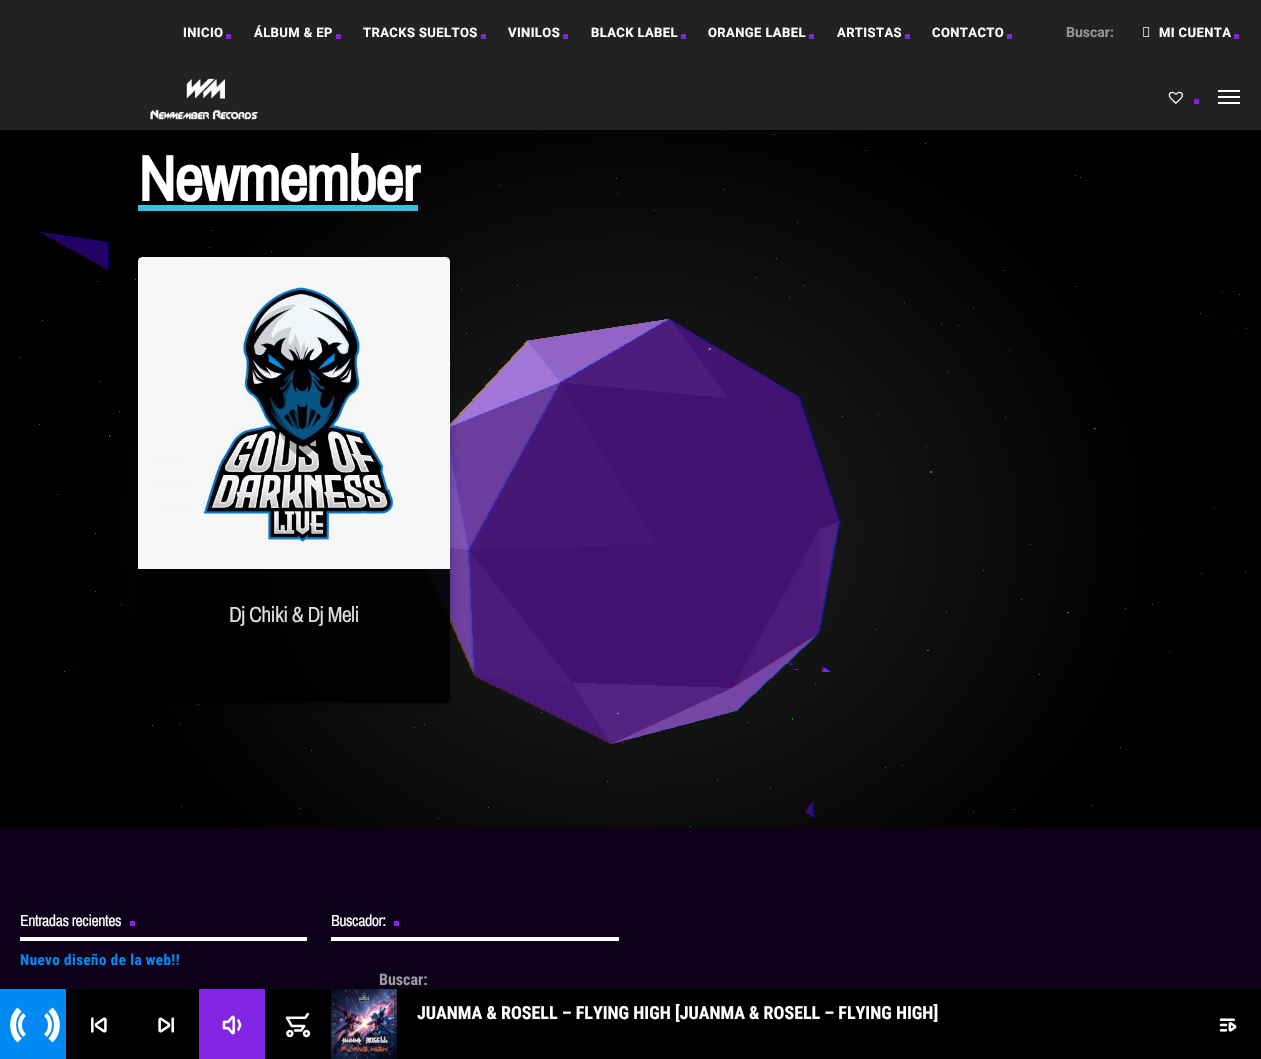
void draw(SkCanvas* canvas) {
  SkPaint paint;
  paint.setAntiAlias(true);
  auto face = [&](const char* family, int weight, float size, bool italic = false) {
    SkFontStyle style(weight, SkFontStyle::kNormal_Width,
      italic ? SkFontStyle::kItalic_Slant : SkFontStyle::kUpright_Slant);
    SkFont result(fontMgr->matchFamilyStyle(family, style), size);
    result.setSubpixel(true);
    return result;
  };
  auto writeSpaced = [&](const char* s, float x, float y, const SkFont& font, const SkPaint& ink, float letter, float word) {
    std::vector<SkGlyphID> glyphs(font.countText(s, strlen(s), SkTextEncoding::kUTF8));
    std::vector<float> xs(glyphs.size());
    font.textToGlyphs(s, strlen(s), SkTextEncoding::kUTF8, glyphs);
    font.getXPos(glyphs, xs, x);
    float extra = 0;
    for (size_t i = 0; i < glyphs.size(); i++) {
      xs[i] += extra;
      extra += letter + word * (glyphs[i] == font.unicharToGlyph(' '));
    }
    canvas->drawTextBlob(SkTextBlob::MakeFromPosHGlyphs(glyphs, xs, y, font), 0, 0, ink);
  };
  auto paste = [&](const char* path, float x, float y, float w, float h) {
    auto image = SkImages::DeferredFromEncodedData(SkData::MakeFromFileName(path));
    canvas->drawImageRect(image, SkRect::MakeXYWH(x, y, w, h), SkSamplingOptions());
  };
  auto shape = [&](const char* data, bool evenOdd = false) {
    SkPath result = *SkParsePath::FromSVGString(data);
    if (evenOdd) result.setFillType(SkPathFillType::kEvenOdd);
    return result;
  };
  canvas->clear(0xffffffff);
  {
    const struct { float x, y, w, h; SkColor color; } items[] = {
      {0, 0, 1261, 130, 0xff222222},
      {226, 34, 5, 5, 0xff8224e3},
      {336, 34, 5, 5, 0xff8224e3},
      {481, 34, 5, 5, 0xff8224e3},
      {563, 34, 5, 5, 0xff8224e3},
      {681, 34, 5, 5, 0xff8224e3},
      {809, 34, 5, 5, 0xff8224e3},
      {905, 34, 5, 5, 0xff8224e3},
      {1007, 34, 5, 5, 0xff8224e3},
    };
    for (auto [x, y, w, h, color] : items) {
      paint.setColor(color);
      canvas->drawRect(SkRect::MakeXYWH(x, y, w, h), paint);
    }
  }
  paste("img/1.png", 1143, 27, 7, 10);
  canvas->drawRect(SkRect::MakeXYWH(1234, 34, 5, 5), paint);
  paste("img/2.png", 149, 78, 109, 42);
  paste("img/3.png", 1168, 91, 15, 13);
  {
    const struct { float x, y, w, h; SkColor color; } items[] = {
      {1194, 99, 5, 5, 0xff8224e3},
      {1218, 90, 22, 2, 0xffffffff},
      {1218, 96, 22, 2, 0xffffffff},
      {1218, 102, 22, 2, 0xffffffff},
    };
    for (auto [x, y, w, h, color] : items) {
      paint.setColor(color);
      canvas->drawRect(SkRect::MakeXYWH(x, y, w, h), paint);
    }
  }
  {
    const SkColor colors[] = {0xff222222, 0xff000000};
    const float stops[] = {0, 0.6f};
    SkMatrix m = SkMatrix::Translate(631, 530).preScale(892, 749);
    paint.setShader(SkGradientShader::MakeRadial({0, 0}, 1, colors, stops, 2, SkTileMode::kClamp, 0, &m));
    paint.setAlpha(255);
  }
  canvas->drawRect(SkRect::MakeXYWH(0, 130, 1261, 698), paint);
  paste("img/4.png", 19, 134, 1228, 693);
  paint.setShader(nullptr);
  paint.setColor(0xff39c0de);
  canvas->drawRect(SkRect::MakeXYWH(138, 205, 280, 6), paint);
  canvas->save();
  canvas->clipPath(shape("M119 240H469V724H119ZM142 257H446C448 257 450 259 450 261V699C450 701 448 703 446 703H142C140 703 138 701 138 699V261C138 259 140 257 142 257Z", true), true);
  paint.setColor(0x4d000000);
  paint.setMaskFilter(SkMaskFilter::MakeBlur(kNormal_SkBlurStyle, 6));
  canvas->drawRoundRect(SkRect::MakeXYWH(138, 259, 312, 446), 4, 4, paint);
  paint.setMaskFilter(nullptr);
  canvas->restore();
  paint.setColor(0xe6000000);
  canvas->drawRoundRect(SkRect::MakeXYWH(138, 257, 312, 446), 4, 4, paint);
  paint.setColor(0xff000000);
  canvas->drawPath(shape("M142 257H446C448 257 450 259 450 261V569H138V261C138 259 140 257 142 257Z"), paint);
  paste("img/5.png", 138, 257, 312, 312);
  {
    const struct { float x, y, w, h; SkColor color; } items[] = {
      {0, 828, 1261, 161, 0xff0c0119},
      {20, 937, 287, 4, 0xffffffff},
      {130, 921, 5, 5, 0xff8224e3},
      {331, 937, 288, 4, 0xffffffff},
      {394, 921, 5, 5, 0xff8224e3},
      {66, 989, 1195, 70, 0xff000000},
      {0, 989, 66, 70, 0xff028af2},
    };
    for (auto [x, y, w, h, color] : items) {
      paint.setColor(color);
      canvas->drawRect(SkRect::MakeXYWH(x, y, w, h), paint);
    }
  }
  paint.setStroke(true);
  paint.setStrokeWidth(4);
  paint.setColor(0xffffffff);
  canvas->drawPath(shape("M45.5 1014.5C51.5 1020 51.5 1030 45.5 1035.5M24.5 1035.5C18.5 1030 18.5 1020 24.5 1014.5"), paint);
  paint.setStrokeWidth(6);
  canvas->drawPath(shape("M50.5 1009.5C59 1018 59 1032 50.5 1040.5M19.5 1040.5C11 1032 11 1018 19.5 1009.5"), paint);
  paste("img/6.png", 91, 1017, 16, 16);
  paste("img/7.png", 158, 1017, 16, 16);
  paint.setStroke(false);
  paint.setColor(0xff8224e3);
  canvas->drawRect(SkRect::MakeXYWH(199, 989, 66, 70), paint);
  paste("img/8.png", 222, 1015, 20, 20);
  paste("img/9.png", 285, 1012, 26, 26);
  paste("img/10.png", 331, 989, 66, 70);
  paste("img/11.png", 1219, 1018, 18, 14);
  auto f0 = face("Roboto", 700, 13);
  paint.setColor(0xffffffff);
  {
    const struct { const char* s; float x, y; } items[] = {
      {"INICIO", 183, 37},
      {"ÁLBUM & EP", 254, 37},
      {"TRACKS SUELTOS", 363, 37},
      {"VINILOS", 508, 37},
      {"BLACK LABEL", 591, 37},
      {"ORANGE LABEL", 708, 37},
      {"ARTISTAS", 837, 37},
      {"CONTACTO", 932, 37},
    };
    for (auto [s, x, y] : items) {
      writeSpaced(s, x, y, f0, paint, 0.4f, 0);
    }
  }
  auto f1 = face("Roboto", 700, 14);
  paint.setColor(0xff969696);
  canvas->drawString("Buscar:", 1066, 37, f1, paint);
  paint.setColor(0xffffffff);
  writeSpaced("MI CUENTA", 1159, 37, f0, paint, 0.4f, 0);
  auto f2 = face("Archivo Narrow", 700, 64);
  writeSpaced("Newmember", 138, 201, f2, paint, -2, 0);
  auto f3 = face("Archivo Narrow", 400, 22);
  paint.setColor(0xffdedede);
  writeSpaced("Dj Chiki & Dj Meli", 229, 622, f3, paint, -0.7f, 0);
  auto f4 = face("Archivo Narrow", 400, 16);
  paint.setColor(0xffffffff);
  writeSpaced("Entradas recientes", 20, 926, f4, paint, -0.5f, 0);
  auto f5 = face("Roboto Condensed", 700, 15);
  paint.setColor(0xff028af2);
  writeSpaced("Nuevo diseño de la web!!", 20, 965, f5, paint, 0.45f, 0);
  paint.setColor(0xffffffff);
  writeSpaced("Buscador:", 331, 926, f4, paint, -0.5f, 0);
  auto f6 = face("Roboto Condensed", 700, 16);
  paint.setColor(0xff9e99a3);
  canvas->drawString("Buscar:", 379, 985, f6, paint);
  auto f7 = face("Roboto Condensed", 700, 18);
  paint.setColor(0xffffffff);
  canvas->drawString("JUANMA & ROSELL – FLYING HIGH [JUANMA & ROSELL – FLYING HIGH]", 417, 1019, f7, paint);
}
